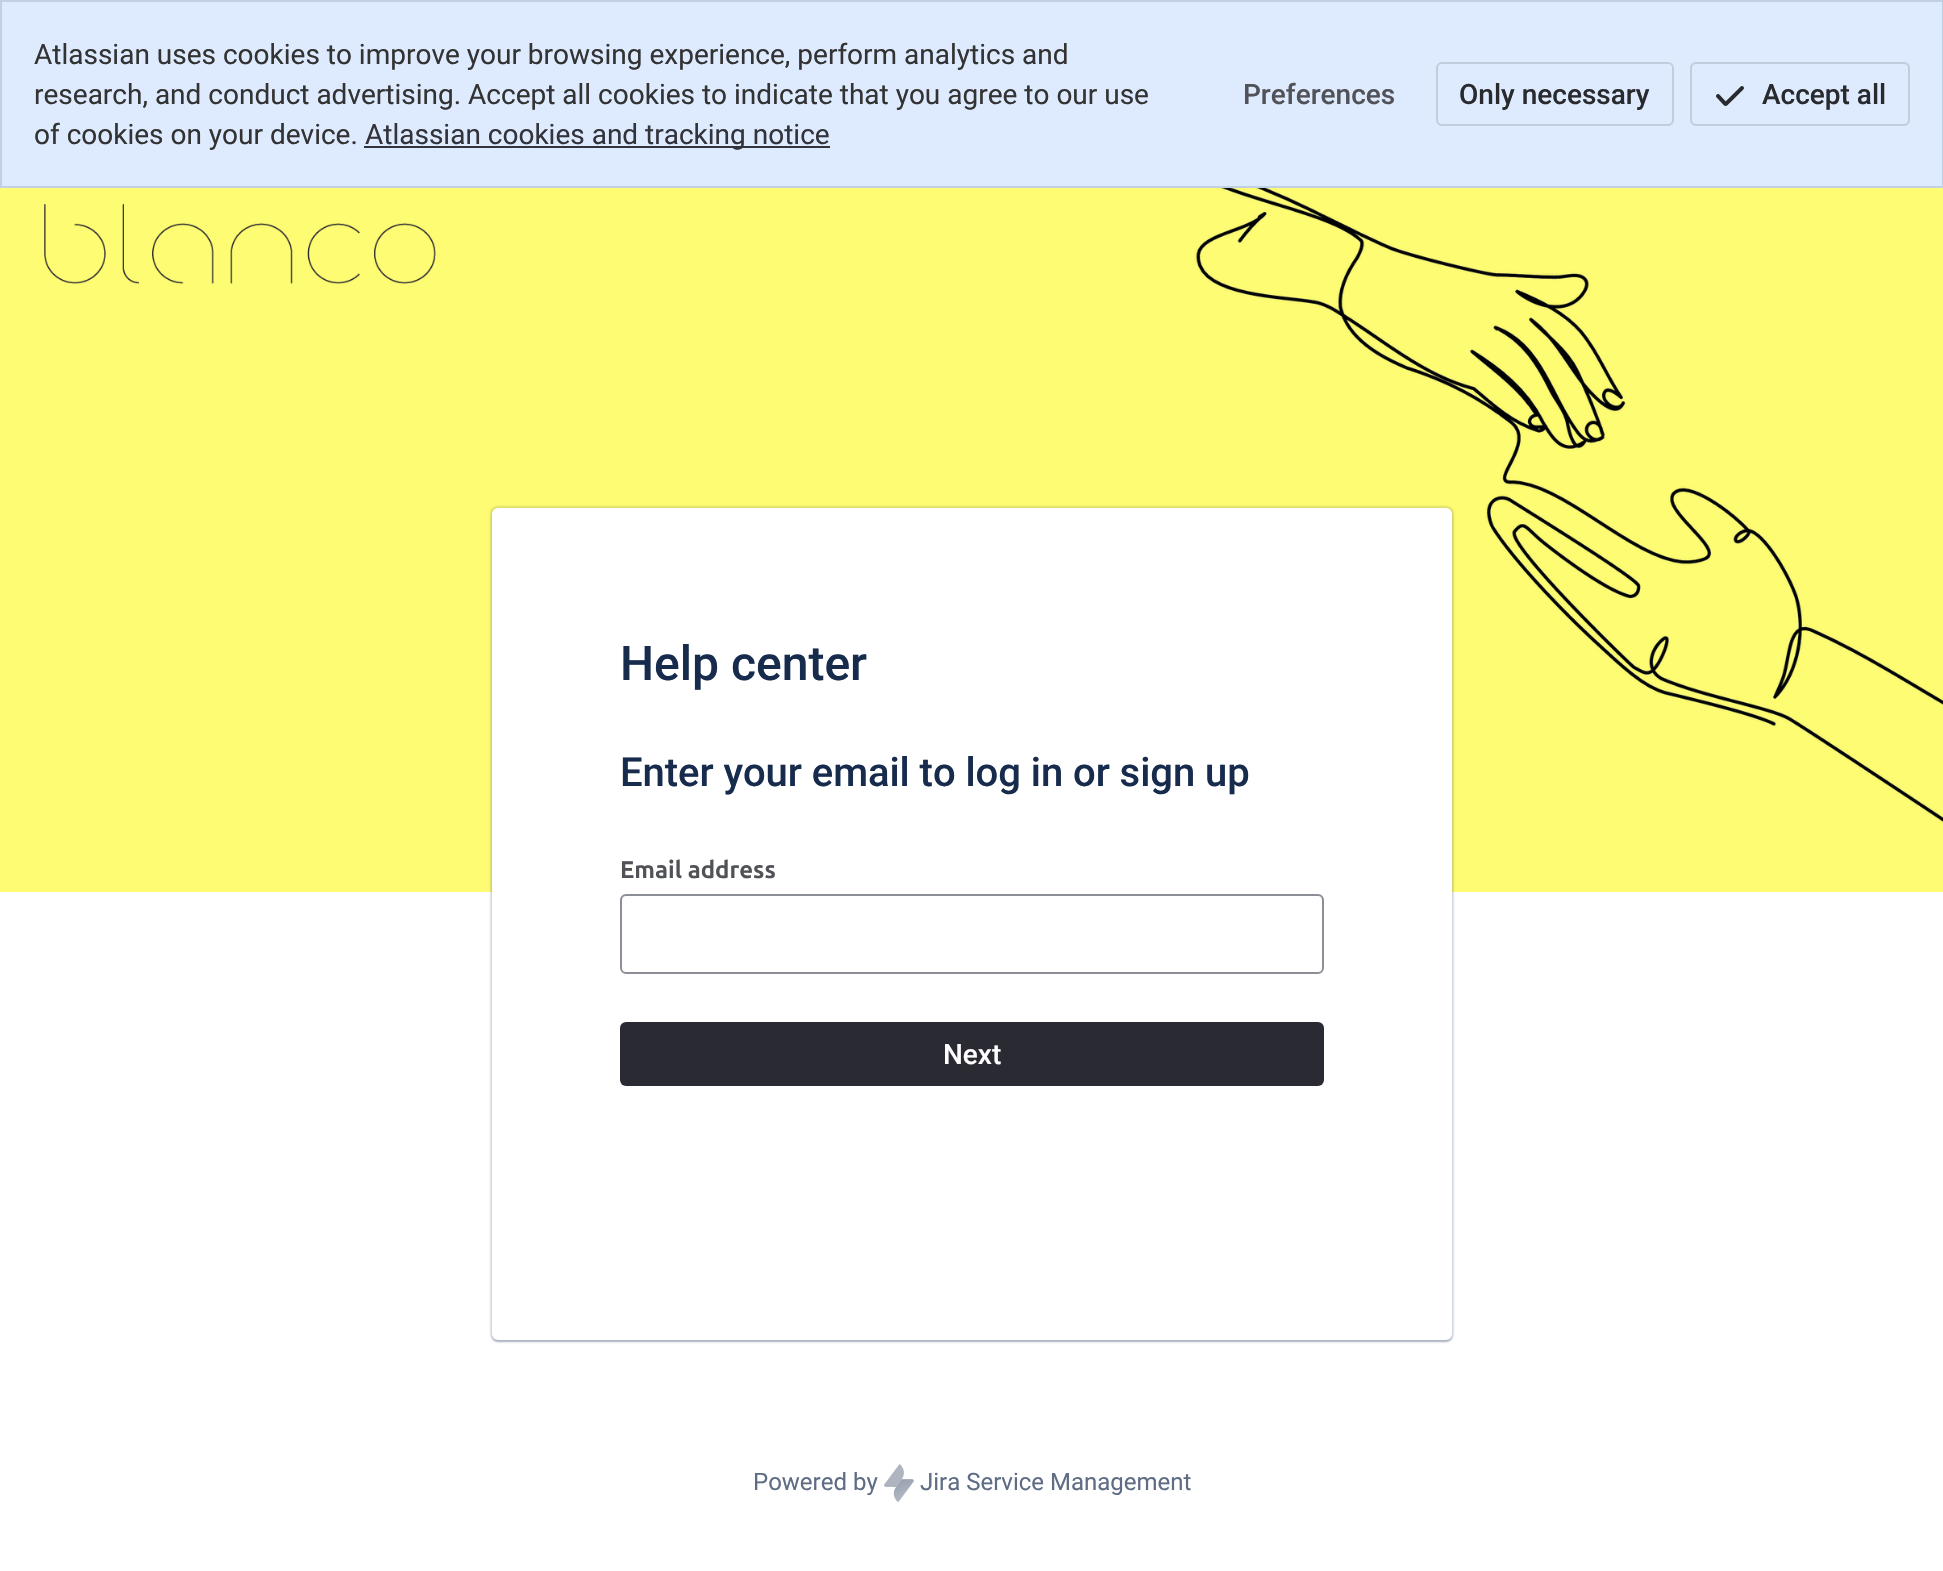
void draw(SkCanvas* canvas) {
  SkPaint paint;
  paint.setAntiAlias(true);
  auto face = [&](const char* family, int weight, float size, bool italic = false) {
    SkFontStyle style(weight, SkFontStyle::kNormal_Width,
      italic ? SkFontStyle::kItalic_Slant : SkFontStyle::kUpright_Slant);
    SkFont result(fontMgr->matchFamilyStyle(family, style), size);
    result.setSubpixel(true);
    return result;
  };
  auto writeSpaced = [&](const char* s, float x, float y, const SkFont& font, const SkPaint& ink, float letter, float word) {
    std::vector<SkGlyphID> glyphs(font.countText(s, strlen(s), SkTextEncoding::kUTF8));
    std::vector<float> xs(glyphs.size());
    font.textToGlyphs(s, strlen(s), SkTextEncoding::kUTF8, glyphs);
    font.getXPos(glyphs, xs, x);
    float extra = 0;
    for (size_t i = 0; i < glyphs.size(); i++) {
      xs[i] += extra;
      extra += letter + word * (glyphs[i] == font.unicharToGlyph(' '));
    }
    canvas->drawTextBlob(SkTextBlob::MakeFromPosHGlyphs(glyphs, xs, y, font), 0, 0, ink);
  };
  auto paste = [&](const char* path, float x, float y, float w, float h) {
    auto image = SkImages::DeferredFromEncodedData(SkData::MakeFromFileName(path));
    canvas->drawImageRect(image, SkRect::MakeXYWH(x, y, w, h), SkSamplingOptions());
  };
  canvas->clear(0xffffffff);
  paint.setColor(0xffdeebff);
  canvas->drawRect(SkRect::MakeXYWH(1, 1, 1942, 186), paint);
  paint.setStroke(true);
  paint.setStrokeWidth(2);
  paint.setColor(0xffc2d0e6);
  canvas->drawRect(SkRect::MakeXYWH(1, 1, 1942, 186), paint);
  paint.setStroke(false);
  paint.setColor(0xff33333b);
  canvas->drawRect(SkRect::MakeXYWH(364, 146, 466, 2), paint);
  paint.setStroke(true);
  paint.setColor(0xffc0cddd);
  canvas->drawRoundRect(SkRect::MakeXYWH(1437, 63, 236, 62), 5, 5, paint);
  paste("img/1.png", 1716, 86, 28, 20);
  canvas->drawRoundRect(SkRect::MakeXYWH(1691, 63, 218, 62), 5, 5, paint);
  paste("img/2.png", 0, 188, 1943, 704);
  paste("img/3.png", 44, 204, 392, 80);
  paint.setStroke(false);
  paint.setColor(0x21091e42);
  paint.setMaskFilter(SkMaskFilter::MakeBlur(kNormal_SkBlurStyle, 1));
  canvas->drawRoundRect(SkRect::MakeXYWH(490, 506, 964, 836), 8, 8, paint);
  paint.setMaskFilter(nullptr);
  paint.setColor(0x40091e42);
  paint.setMaskFilter(SkMaskFilter::MakeBlur(kNormal_SkBlurStyle, 1));
  canvas->drawRoundRect(SkRect::MakeXYWH(492, 510, 960, 832), 6, 6, paint);
  paint.setMaskFilter(nullptr);
  paint.setColor(0xffffffff);
  canvas->drawRoundRect(SkRect::MakeXYWH(492, 508, 960, 832), 6, 6, paint);
  paint.setStroke(true);
  paint.setColor(0xff8c8f97);
  canvas->drawRoundRect(SkRect::MakeXYWH(621, 895, 702, 78), 5, 5, paint);
  paint.setStroke(false);
  paint.setColor(0xff2a2a32);
  canvas->drawRoundRect(SkRect::MakeXYWH(620, 1022, 704, 64), 6, 6, paint);
  paste("img/4.png", 884, 1464, 30, 39);
  auto f0 = face("Roboto", 400, 28);
  paint.setColor(0xff333333);
  {
    const struct { const char* s; float x, y; } items[] = {
      {"Atlassian uses cookies to improve your browsing experience, perform analytics and", 34, 64},
      {"research, and conduct advertising. Accept all cookies to indicate that you agree to our use", 34, 104},
      {"of cookies on your device.", 34, 144},
    };
    for (auto [s, x, y] : items) {
      canvas->drawString(s, x, y, f0, paint);
    }
  }
  paint.setColor(0xff33333b);
  canvas->drawString("Atlassian cookies and tracking notice", 365, 144, f0, paint);
  auto f1 = face("Roboto", 500, 28);
  paint.setColor(0xff505258);
  canvas->drawString("Preferences", 1243, 104, f1, paint);
  paint.setColor(0xff292a2e);
  canvas->drawString("Only necessary", 1459, 104, f1, paint);
  canvas->drawString("Accept all", 1762, 104, f1, paint);
  auto f2 = face("Roboto", 500, 48);
  paint.setColor(0xff172b4d);
  canvas->drawString("Help center", 620, 680, f2, paint);
  auto f3 = face("Roboto", 500, 40);
  writeSpaced("Enter your email to log in or sign up", 620, 786, f3, paint, -0.05f, 0);
  auto f4 = face("Ubuntu", 700, 24);
  paint.setColor(0xff505258);
  canvas->drawString("Email address", 620, 878, f4, paint);
  paint.setColor(0xffffffff);
  canvas->drawString("Next", 943, 1064, f1, paint);
  auto f5 = face("Roboto", 400, 24);
  paint.setColor(0xff5e6c84);
  canvas->drawString("Powered by", 753, 1490, f5, paint);
  canvas->drawString("Jira Service Management", 920, 1490, f5, paint);
}
